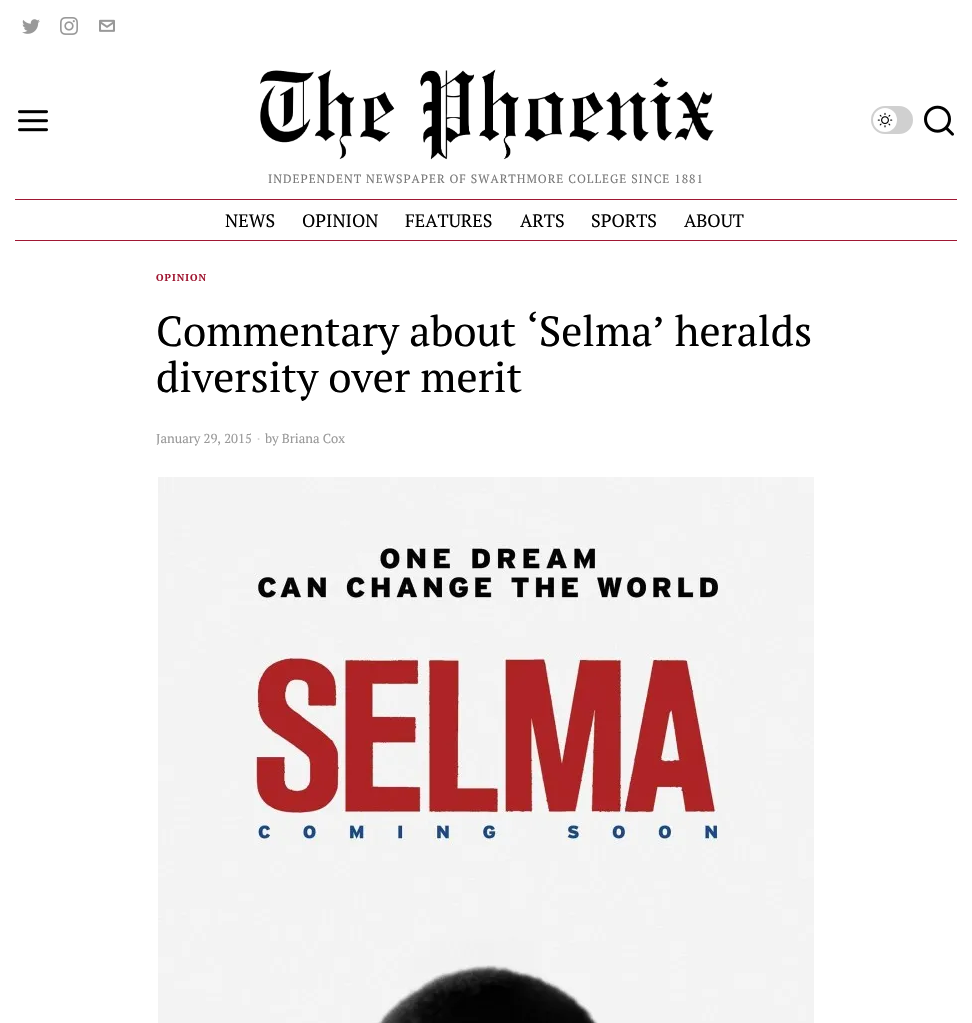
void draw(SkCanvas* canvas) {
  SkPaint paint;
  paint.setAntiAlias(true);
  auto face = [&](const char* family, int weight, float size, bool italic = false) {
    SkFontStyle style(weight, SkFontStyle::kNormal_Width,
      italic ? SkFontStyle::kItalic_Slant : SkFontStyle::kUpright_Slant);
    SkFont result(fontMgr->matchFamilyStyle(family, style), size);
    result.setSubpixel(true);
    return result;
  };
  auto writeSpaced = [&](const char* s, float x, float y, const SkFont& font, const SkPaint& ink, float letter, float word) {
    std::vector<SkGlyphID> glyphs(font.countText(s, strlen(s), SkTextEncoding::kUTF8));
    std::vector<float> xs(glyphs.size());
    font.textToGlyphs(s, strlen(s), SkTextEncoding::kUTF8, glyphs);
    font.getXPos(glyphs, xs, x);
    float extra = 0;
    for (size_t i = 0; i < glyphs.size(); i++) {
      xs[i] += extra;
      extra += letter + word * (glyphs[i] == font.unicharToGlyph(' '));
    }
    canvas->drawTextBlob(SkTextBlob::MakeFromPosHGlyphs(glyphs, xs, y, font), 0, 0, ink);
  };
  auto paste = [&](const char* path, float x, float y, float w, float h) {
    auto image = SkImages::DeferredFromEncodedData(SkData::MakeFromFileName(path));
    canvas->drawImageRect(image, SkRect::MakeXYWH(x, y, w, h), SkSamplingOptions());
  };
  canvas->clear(0xffffffff);
  paste("img/1.png", 22, 19, 18, 15);
  paste("img/2.png", 60, 17, 18, 18);
  paste("img/3.png", 99, 19, 16, 13);
  paste("img/4.png", 18, 110, 30, 22);
  paint.setColor(0xffd0d0d0);
  canvas->drawRoundRect(SkRect::MakeXYWH(872, 107, 40, 26), 13, 13, paint);
  paint.setStroke(true);
  paint.setStrokeWidth(2);
  canvas->drawRoundRect(SkRect::MakeXYWH(872, 107, 40, 26), 13, 13, paint);
  paint.setStroke(false);
  paint.setColor(0xffffffff);
  canvas->drawCircle(885, 120, 12, paint);
  paste("img/5.png", 877, 112, 16, 16);
  paste("img/6.png", 924, 105, 30, 31);
  paste("img/7.png", 260, 69, 454, 91);
  paint.setColor(0xffa01733);
  canvas->drawRect(SkRect::MakeXYWH(15, 199, 942, 1), paint);
  canvas->drawRect(SkRect::MakeXYWH(15, 240, 942, 1), paint);
  paste("img/8.png", 158, 477, 656, 546);
  auto f0 = face("PT Serif", 400, 12);
  paint.setColor(0xff797979);
  writeSpaced("INDEPENDENT NEWSPAPER OF SWARTHMORE COLLEGE SINCE 1881", 268, 183, f0, paint, 1, 0);
  auto f1 = face("PT Serif", 400, 18);
  paint.setColor(0xff000000);
  {
    const struct { const char* s; float x, y; } items[] = {
      {"NEWS", 225, 227},
      {"OPINION", 302, 227},
      {"FEATURES", 405, 227},
      {"ARTS", 520, 227},
      {"SPORTS", 591, 227},
      {"ABOUT", 684, 227},
    };
    for (auto [s, x, y] : items) {
      canvas->drawString(s, x, y, f1, paint);
    }
  }
  auto f2 = face("PT Serif", 700, 10);
  paint.setColor(0xffa11833);
  writeSpaced("OPINION", 156, 281, f2, paint, 1, 0);
  auto f3 = face("PT Serif", 400, 42);
  paint.setColor(0xff000000);
  canvas->drawString("Commentary about ‘Selma’ heralds", 156, 346, f3, paint);
  canvas->drawString("diversity over merit", 156, 392, f3, paint);
  auto f4 = face("PT Serif", 400, 13);
  paint.setColor(0xff999999);
  canvas->drawString("January 29, 2015", 156, 443, f4, paint);
  paint.setColor(0xffcccccc);
  canvas->drawString("·", 257, 443, f4, paint);
  paint.setColor(0xff999999);
  canvas->drawString("by Briana Cox", 265, 443, f4, paint);
}
